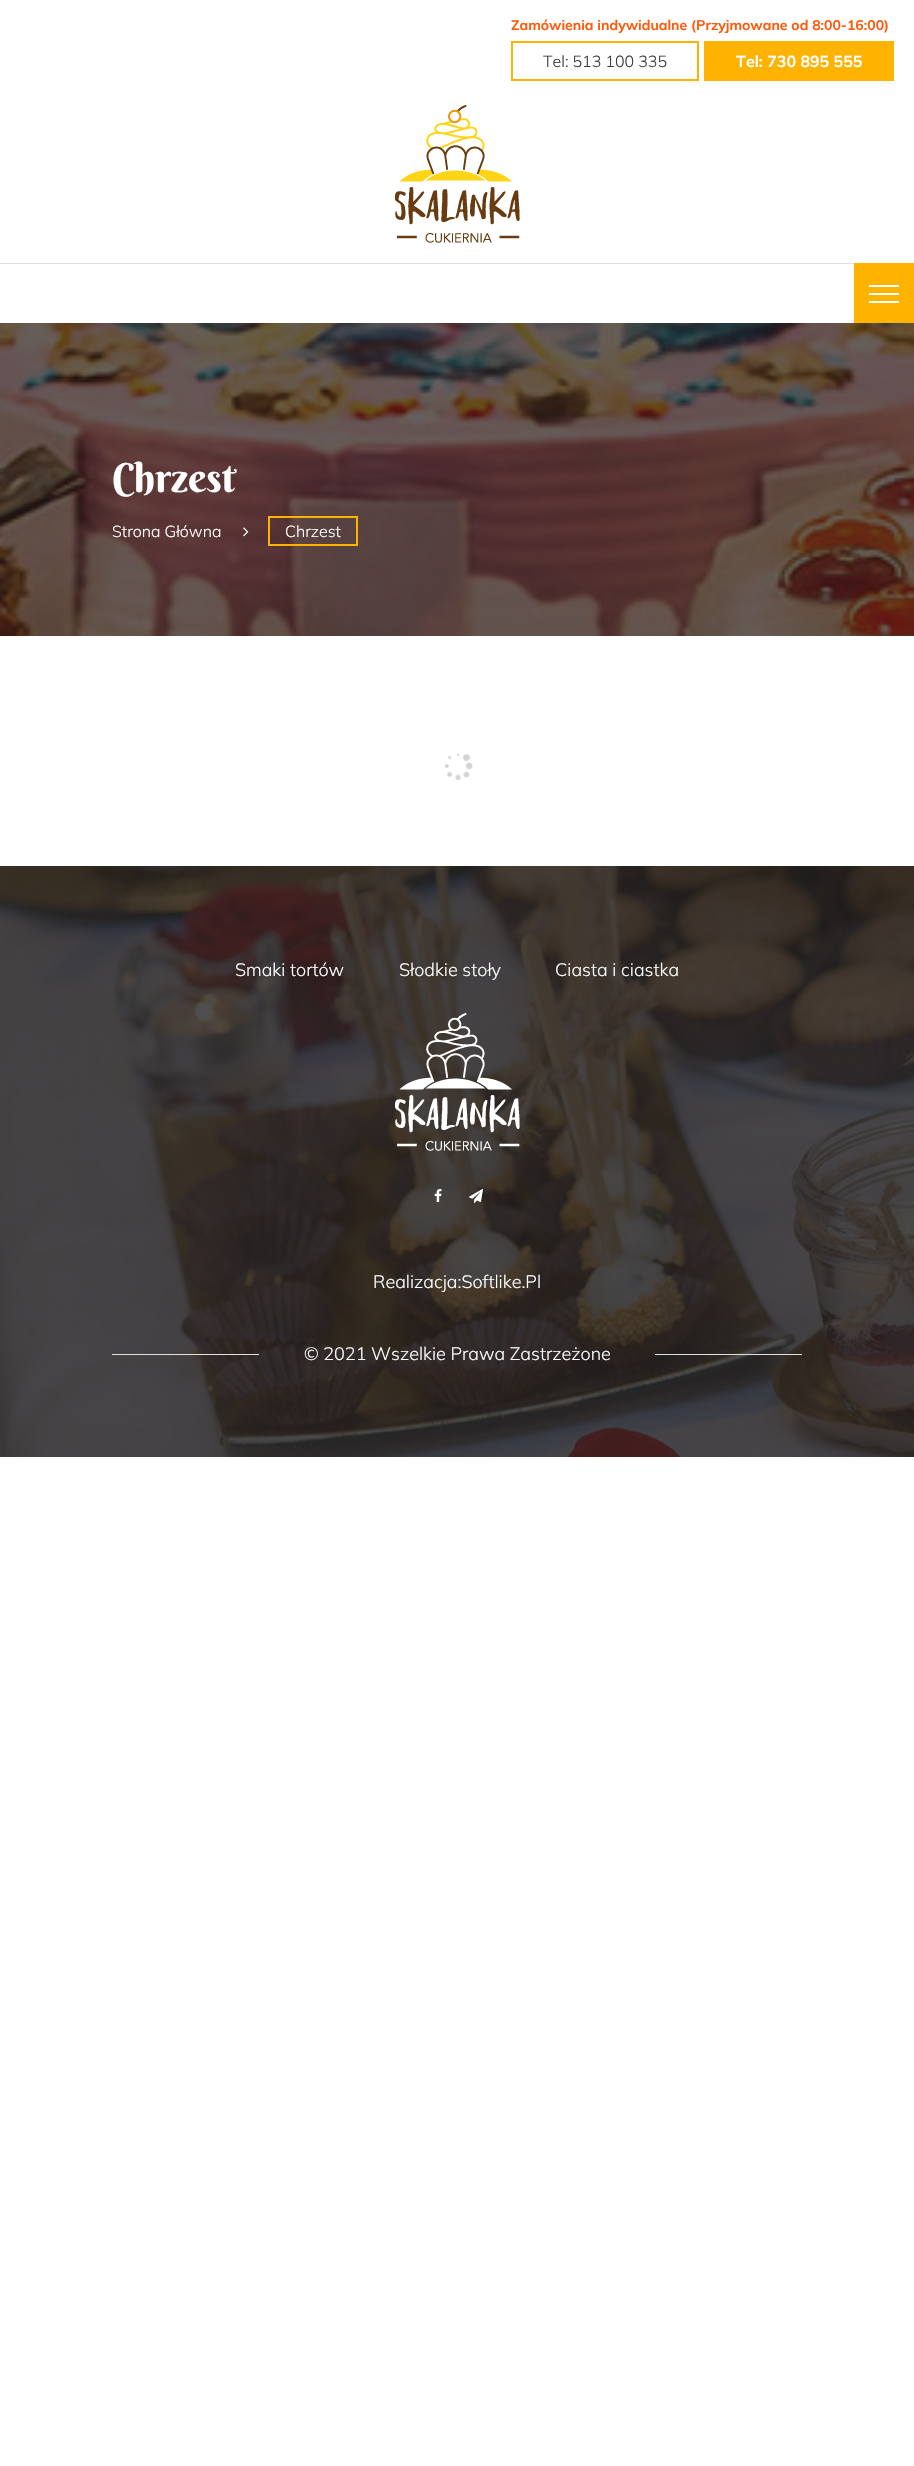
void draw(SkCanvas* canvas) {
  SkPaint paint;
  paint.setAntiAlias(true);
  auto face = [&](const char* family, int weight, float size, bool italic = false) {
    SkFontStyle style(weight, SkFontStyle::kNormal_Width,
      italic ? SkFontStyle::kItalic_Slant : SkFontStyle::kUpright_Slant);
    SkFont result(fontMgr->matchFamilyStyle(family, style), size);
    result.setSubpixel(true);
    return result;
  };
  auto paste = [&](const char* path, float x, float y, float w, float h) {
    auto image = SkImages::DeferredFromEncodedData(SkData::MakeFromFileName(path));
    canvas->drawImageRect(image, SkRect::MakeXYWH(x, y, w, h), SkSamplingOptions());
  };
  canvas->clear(0xffffffff);
  paint.setStroke(true);
  paint.setStrokeWidth(2);
  paint.setColor(0xffffb301);
  canvas->drawRect(SkRect::MakeXYWH(512, 42, 186, 38), paint);
  paint.setStroke(false);
  canvas->drawRect(SkRect::MakeXYWH(704, 41, 190, 40), paint);
  paste("img/1.png", 395, 105, 125, 138);
  {
    const struct { float x, y, w, h; SkColor color; } items[] = {
      {0, 263, 854, 1, 0xffe1e0e0},
      {854, 263, 60, 60, 0xffffb301},
      {869, 285, 30, 2, 0xffffffff},
      {869, 301, 30, 2, 0xffffffff},
      {869, 293, 30, 2, 0xffffffff},
    };
    for (auto [x, y, w, h, color] : items) {
      paint.setColor(color);
      canvas->drawRect(SkRect::MakeXYWH(x, y, w, h), paint);
    }
  }
  paste("img/2.png", 0, 323, 914, 313);
  paint.setStroke(true);
  paint.setColor(0xffffb301);
  canvas->drawRect(SkRect::MakeXYWH(269, 517, 88, 28), paint);
  paste("img/3.png", 243, 527, 6, 10);
  paste("img/4.png", 445, 753, 28, 27);
  paste("img/5.png", 0, 866, 914, 591);
  paste("img/6.png", 395, 1013, 125, 138);
  paste("img/7.png", 434, 1189, 8, 13);
  paste("img/8.png", 469, 1189, 14, 14);
  paint.setStroke(false);
  paint.setColor(0xffe1e0e0);
  canvas->drawRect(SkRect::MakeXYWH(112, 1354, 147, 1), paint);
  canvas->drawRect(SkRect::MakeXYWH(655, 1354, 147, 1), paint);
  auto f0 = face("Mulish", 700, 14);
  paint.setColor(0xffff5807);
  canvas->drawString("Zamówienia indywidualne (Przyjmowane od 8:00-16:00)", 511, 30, f0, paint);
  auto f1 = face("Mulish", 300, 16);
  paint.setColor(0xff3a3736);
  canvas->drawString("Tel: 513 100 335", 543, 67, f1, paint);
  auto f2 = face("Mulish", 700, 16);
  paint.setColor(0xffffffff);
  canvas->drawString("Tel: 730 895 555", 736, 67, f2, paint);
  auto f3 = face("Berkshire Swash", 400, 40);
  canvas->drawString("Chrzest", 112, 492, f3, paint);
  canvas->drawString("Strona Główna", 112, 537, f1, paint);
  canvas->drawString("Chrzest", 285, 537, f1, paint);
  auto f4 = face("Mulish", 300, 18);
  {
    const struct { const char* s; float x, y; } items[] = {
      {"Smaki tortów", 235, 976},
      {"Słodkie stoły", 399, 976},
      {"Ciasta i ciastka", 555, 976},
      {"Realizacja:Softlike.Pl", 373, 1288},
      {"© 2021 Wszelkie Prawa Zastrzeżone", 304, 1360},
    };
    for (auto [s, x, y] : items) {
      canvas->drawString(s, x, y, f4, paint);
    }
  }
}
